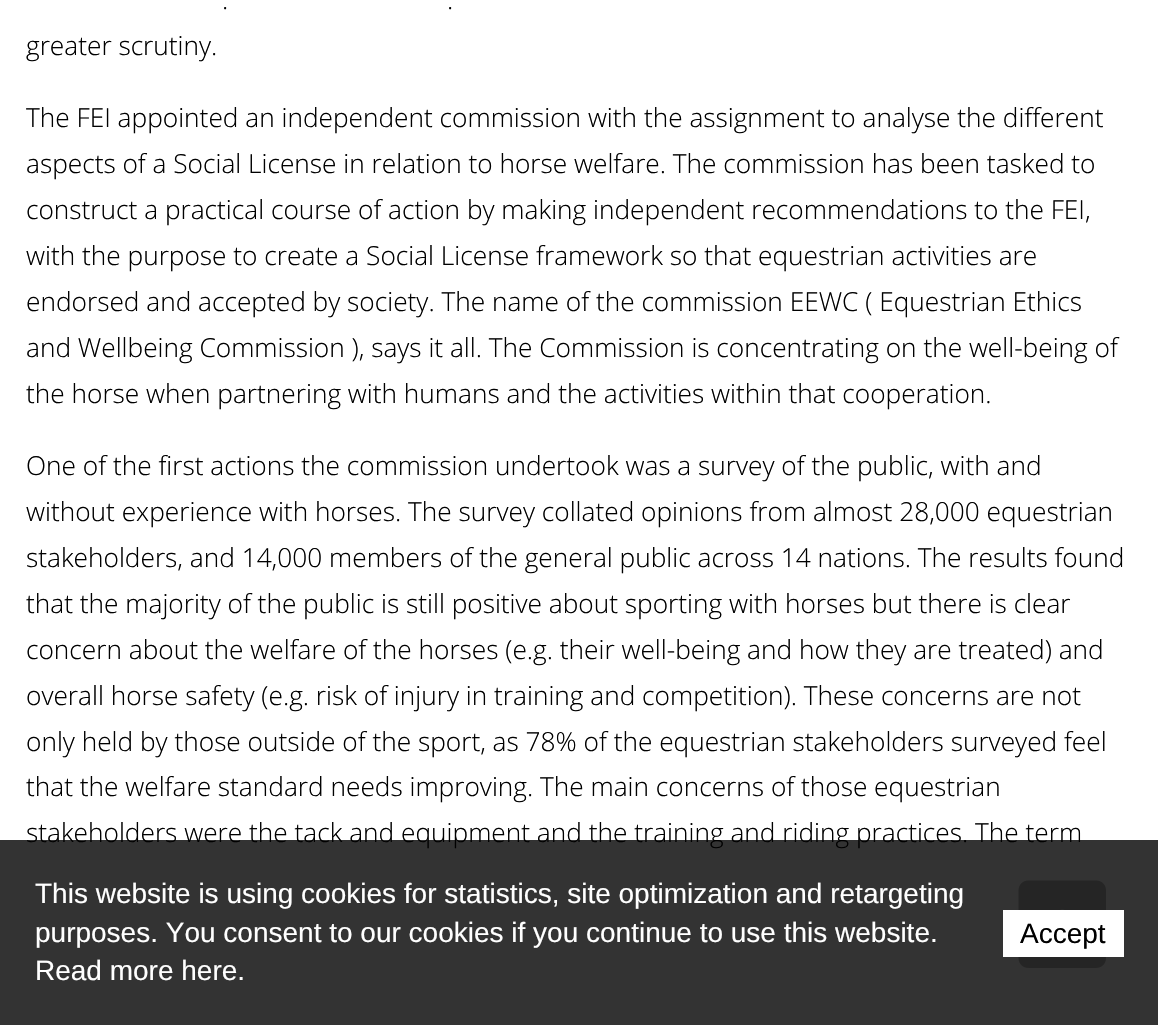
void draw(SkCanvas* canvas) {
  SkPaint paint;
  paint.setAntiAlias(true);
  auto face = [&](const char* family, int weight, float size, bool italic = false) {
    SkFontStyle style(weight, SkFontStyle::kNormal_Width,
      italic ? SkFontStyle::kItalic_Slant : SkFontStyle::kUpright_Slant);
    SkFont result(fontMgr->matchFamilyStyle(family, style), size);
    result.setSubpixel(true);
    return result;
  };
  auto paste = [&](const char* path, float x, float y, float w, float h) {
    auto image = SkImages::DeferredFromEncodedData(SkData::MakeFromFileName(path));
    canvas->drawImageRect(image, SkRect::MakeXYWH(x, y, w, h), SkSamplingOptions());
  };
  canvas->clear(0xffffffff);
  paste("img/1.png", 1018, 880, 88, 88);
  auto f0 = face("Open Sans", 300, 26.25f);
  paint.setColor(0xff000000);
  {
    const struct { const char* s; float x, y; } items[] = {
      {".", 222, 9},
      {".", 447, 9},
      {"greater scrutiny.", 26, 55},
      {"The FEI appointed an independent commission with the assignment to analyse the different", 26, 127},
      {"aspects of a Social License in relation to horse welfare. The commission has been tasked to", 26, 173},
      {"construct a practical course of action by making independent recommendations to the FEI,", 26, 219},
      {"with the purpose to create a Social License framework so that equestrian activities are", 26, 265},
      {"endorsed and accepted by society. The name of the commission EEWC ( Equestrian Ethics", 26, 311},
      {"and Wellbeing Commission ), says it all. The Commission is concentrating on the well-being of", 26, 357},
      {"the horse when partnering with humans and the activities within that cooperation.", 26, 403},
      {"One of the first actions the commission undertook was a survey of the public, with and", 26, 475},
      {"without experience with horses. The survey collated opinions from almost 28,000 equestrian", 26, 521},
      {"stakeholders, and 14,000 members of the general public across 14 nations. The results found", 26, 567},
      {"that the majority of the public is still positive about sporting with horses but there is clear", 26, 613},
      {"concern about the welfare of the horses (e.g. their well-being and how they are treated) and", 26, 659},
      {"overall horse safety (e.g. risk of injury in training and competition). These concerns are not", 26, 705},
      {"only held by those outside of the sport, as 78% of the equestrian stakeholders surveyed feel", 26, 751},
      {"that the welfare standard needs improving. The main concerns of those equestrian", 26, 796},
      {"stakeholders were the tack and equipment and the training and riding practices. The term", 26, 842},
    };
    for (auto [s, x, y] : items) {
      canvas->drawString(s, x, y, f0, paint);
    }
  }
  paint.setColor(0xcc000000);
  canvas->drawRect(SkRect::MakeXYWH(0, 840, 1158, 185), paint);
  auto f1 = face("Liberation Sans", 400, 28);
  paint.setColor(0xffffffff);
  {
    const struct { const char* s; float x, y; } items[] = {
      {"This website is using cookies for statistics, site optimization and retargeting", 35, 903},
      {"purposes. You consent to our cookies if you continue to use this website.", 35, 942},
      {"Read more here.", 35, 980},
    };
    for (auto [s, x, y] : items) {
      canvas->drawString(s, x, y, f1, paint);
    }
  }
  canvas->drawRect(SkRect::MakeXYWH(1003, 910, 121, 47), paint);
  paint.setColor(0xff000000);
  canvas->drawString("Accept", 1020, 943, f1, paint);
}
